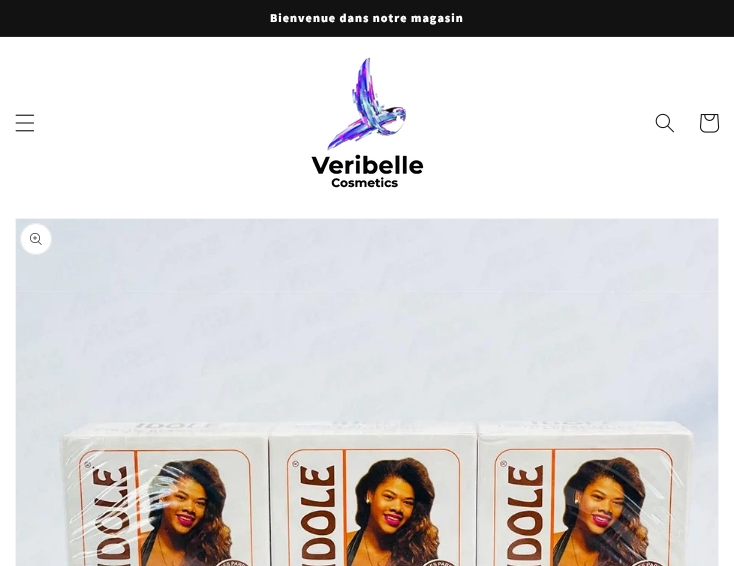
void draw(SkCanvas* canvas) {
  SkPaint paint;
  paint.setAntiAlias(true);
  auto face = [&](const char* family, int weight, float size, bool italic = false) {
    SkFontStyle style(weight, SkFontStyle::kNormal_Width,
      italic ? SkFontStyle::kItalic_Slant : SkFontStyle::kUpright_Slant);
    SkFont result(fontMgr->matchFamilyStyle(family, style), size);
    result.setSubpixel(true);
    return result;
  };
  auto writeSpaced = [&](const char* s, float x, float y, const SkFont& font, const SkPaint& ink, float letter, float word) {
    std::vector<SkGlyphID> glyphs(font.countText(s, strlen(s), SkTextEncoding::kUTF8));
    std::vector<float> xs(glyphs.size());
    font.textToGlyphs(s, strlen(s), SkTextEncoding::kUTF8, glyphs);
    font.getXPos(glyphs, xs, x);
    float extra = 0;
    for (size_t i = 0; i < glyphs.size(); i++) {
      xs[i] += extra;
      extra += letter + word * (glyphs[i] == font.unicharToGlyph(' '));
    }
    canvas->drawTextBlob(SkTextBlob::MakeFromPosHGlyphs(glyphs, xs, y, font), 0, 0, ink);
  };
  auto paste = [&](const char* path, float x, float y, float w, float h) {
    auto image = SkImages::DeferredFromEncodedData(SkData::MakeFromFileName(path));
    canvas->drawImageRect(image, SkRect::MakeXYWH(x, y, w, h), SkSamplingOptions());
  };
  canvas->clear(0xffffffff);
  paint.setColor(0xff121212);
  canvas->drawRect(SkRect::MakeXYWH(0, 0, 734, 36), paint);
  paint.setColor(0xff252525);
  canvas->drawRect(SkRect::MakeXYWH(0, 36, 734, 1), paint);
  paste("img/1.png", 15, 114, 20, 18);
  paste("img/2.png", 311, 57, 113, 131);
  paste("img/3.png", 655, 113, 19, 20);
  paste("img/4.png", 700, 114, 20, 19);
  paint.setStroke(true);
  paint.setStrokeWidth(1);
  paint.setColor(0xfff3f3f3);
  canvas->drawRect(SkRect::MakeXYWH(15.5f, 218.5f, 703, 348), paint);
  paste("img/5.png", 16, 219, 702, 347);
  paint.setStroke(false);
  paint.setColor(0xffffffff);
  canvas->drawCircle(36, 239, 16, paint);
  paint.setStroke(true);
  paint.setColor(0x1a121212);
  canvas->drawCircle(36, 239, 15.5f, paint);
  paste("img/6.png", 30, 233, 12, 12);
  auto f0 = face("Assistant", 800, 12);
  paint.setStroke(false);
  paint.setColor(0xffffffff);
  writeSpaced("Bienvenue dans notre magasin", 270, 22, f0, paint, 1, 0);
}
